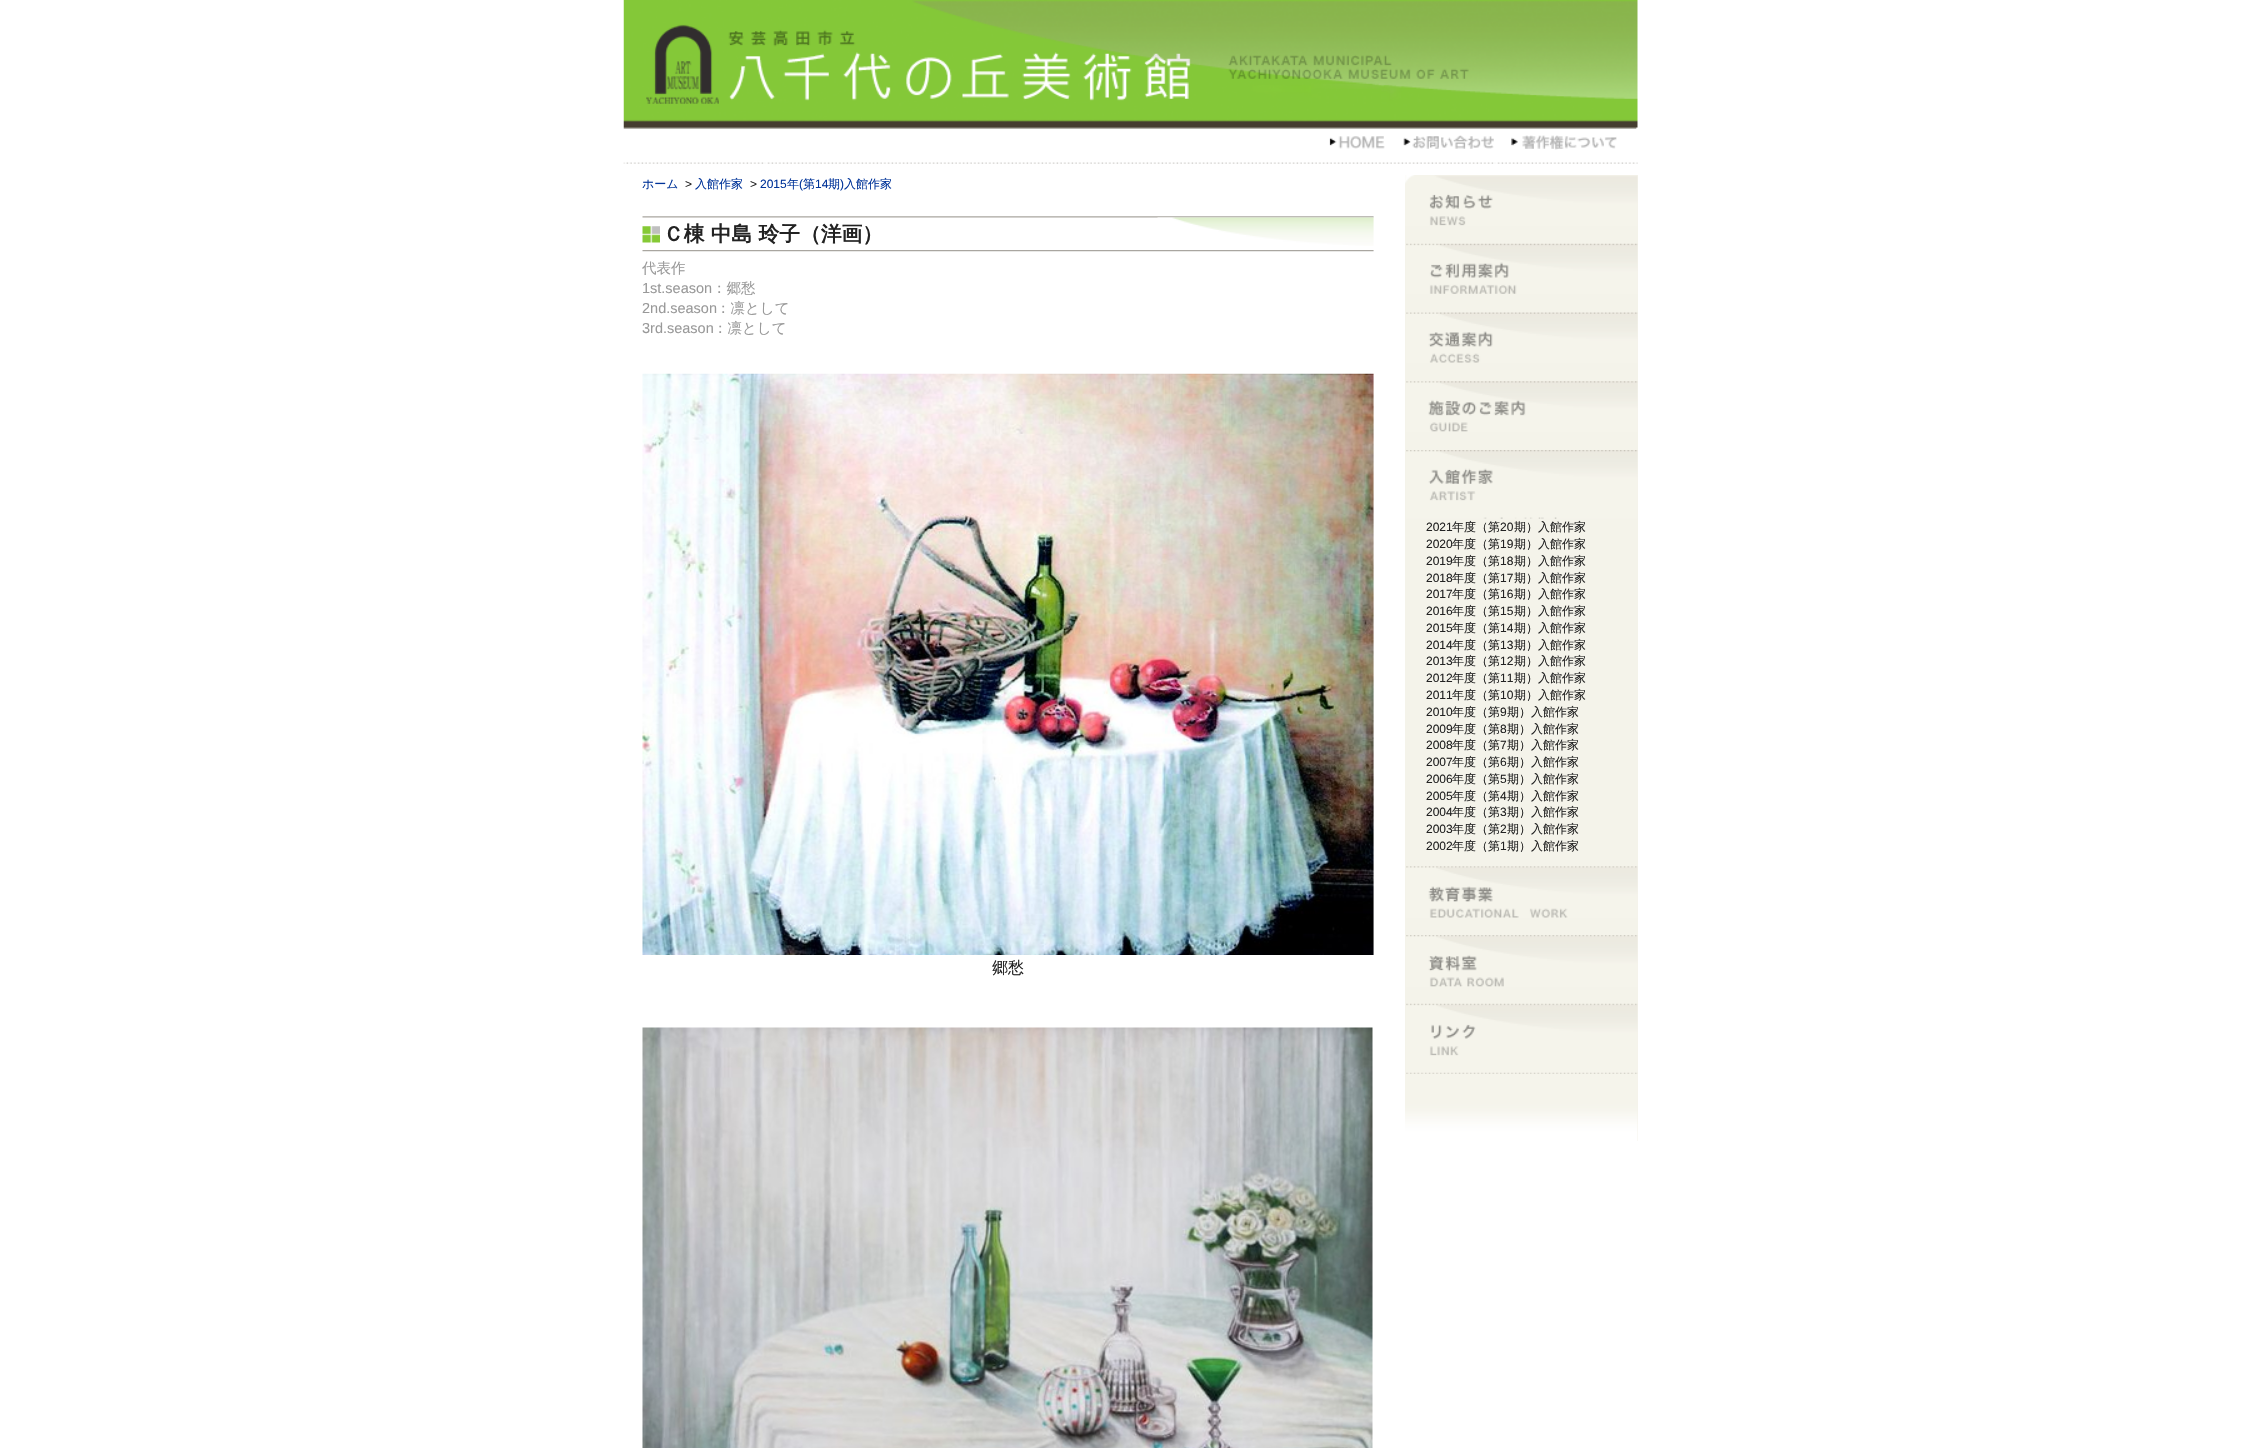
void draw(SkCanvas* canvas) {
  SkPaint paint;
  paint.setAntiAlias(true);
  auto face = [&](const char* family, int weight, float size, bool italic = false) {
    SkFontStyle style(weight, SkFontStyle::kNormal_Width,
      italic ? SkFontStyle::kItalic_Slant : SkFontStyle::kUpright_Slant);
    SkFont result(fontMgr->matchFamilyStyle(family, style), size);
    result.setSubpixel(true);
    return result;
  };
  auto paste = [&](const char* path, float x, float y, float w, float h) {
    auto image = SkImages::DeferredFromEncodedData(SkData::MakeFromFileName(path));
    canvas->drawImageRect(image, SkRect::MakeXYWH(x, y, w, h), SkSamplingOptions());
  };
  canvas->clear(0xffffffff);
  paste("img/1.png", 623, 0, 1015, 129);
  paste("img/2.png", 1329, 136, 56, 13);
  paste("img/3.png", 1403, 135, 91, 14);
  paste("img/4.png", 1511, 135, 106, 15);
  paste("img/5.png", 623, 162, 1015, 2);
  paste("img/6.png", 642, 216, 732, 2);
  paste("img/7.png", 1157, 217, 217, 29);
  paste("img/8.png", 642, 226, 18, 17);
  paste("img/9.png", 642, 250, 732, 2);
  paste("img/10.png", 642, 373, 732, 582);
  paste("img/11.png", 642, 1027, 731, 421);
  paint.setColor(0xfff4f3ea);
  canvas->drawRect(SkRect::MakeXYWH(1405, 175, 233, 966), paint);
  paste("img/12.png", 1405, 175, 233, 51);
  paste("img/13.png", 1406, 243, 232, 51);
  paste("img/14.png", 1406, 312, 232, 51);
  paste("img/15.png", 1406, 381, 232, 51);
  paste("img/16.png", 1406, 450, 232, 69);
  paste("img/17.png", 1406, 866, 232, 52);
  paste("img/18.png", 1406, 935, 232, 52);
  paste("img/20.png", 1405, 1072, 233, 69);
  paste("img/19.png", 1406, 1003, 232, 70);
  auto f0 = face("WenQuanYi Zen Hei", 500, 12);
  paint.setColor(0xff003399);
  canvas->drawString("ホーム", 642, 188, f0, paint);
  auto f1 = face("Liberation Sans", 400, 12);
  paint.setColor(0xff222222);
  canvas->drawString(">", 685, 188, f1, paint);
  paint.setColor(0xff003399);
  canvas->drawString("入館作家", 695, 188, f0, paint);
  paint.setColor(0xff222222);
  canvas->drawString(">", 750, 188, f1, paint);
  paint.setColor(0xff003399);
  canvas->drawString("2015", 760, 188, f1, paint);
  canvas->drawString("年", 787, 188, f0, paint);
  canvas->drawString("(", 799, 188, f1, paint);
  canvas->drawString("第", 803, 188, f0, paint);
  canvas->drawString("14", 815, 188, f1, paint);
  canvas->drawString("期", 828, 188, f0, paint);
  canvas->drawString(")", 840, 188, f1, paint);
  canvas->drawString("入館作家", 844, 188, f0, paint);
  auto f2 = face("WenQuanYi Zen Hei", 700, 20.75f);
  paint.setColor(0xff222222);
  canvas->drawString("Ｃ棟 中島 玲子（洋画）", 663, 241, f2, paint);
  auto f3 = face("WenQuanYi Zen Hei", 500, 14.5f);
  paint.setColor(0xff999999);
  canvas->drawString("代表作", 642, 273, f3, paint);
  auto f4 = face("Liberation Sans", 400, 14.5f);
  canvas->drawString("1st.season", 642, 293, f4, paint);
  canvas->drawString("：郷愁", 712, 293, f3, paint);
  canvas->drawString("2nd.season", 642, 313, f4, paint);
  canvas->drawString("：凛として", 716, 313, f3, paint);
  canvas->drawString("3rd.season", 642, 333, f4, paint);
  canvas->drawString("：凛として", 713, 333, f3, paint);
  auto f5 = face("WenQuanYi Zen Hei", 500, 16);
  paint.setColor(0xff222222);
  canvas->drawString("郷愁", 992, 973, f5, paint);
  canvas->drawString("2021", 1426, 531, f1, paint);
  canvas->drawString("年度（第", 1452, 531, f0, paint);
  canvas->drawString("20", 1500, 531, f1, paint);
  canvas->drawString("期）入館作家", 1514, 531, f0, paint);
  canvas->drawString("2020", 1426, 548, f1, paint);
  canvas->drawString("年度（第", 1452, 548, f0, paint);
  canvas->drawString("19", 1500, 548, f1, paint);
  canvas->drawString("期）入館作家", 1514, 548, f0, paint);
  canvas->drawString("2019", 1426, 565, f1, paint);
  canvas->drawString("年度（第", 1452, 565, f0, paint);
  canvas->drawString("18", 1500, 565, f1, paint);
  canvas->drawString("期）入館作家", 1514, 565, f0, paint);
  canvas->drawString("2018", 1426, 582, f1, paint);
  canvas->drawString("年度（第", 1452, 582, f0, paint);
  canvas->drawString("17", 1500, 582, f1, paint);
  canvas->drawString("期）入館作家", 1514, 582, f0, paint);
  canvas->drawString("2017", 1426, 598, f1, paint);
  canvas->drawString("年度（第", 1452, 598, f0, paint);
  canvas->drawString("16", 1500, 598, f1, paint);
  canvas->drawString("期）入館作家", 1514, 598, f0, paint);
  canvas->drawString("2016", 1426, 615, f1, paint);
  canvas->drawString("年度（第", 1452, 615, f0, paint);
  canvas->drawString("15", 1500, 615, f1, paint);
  canvas->drawString("期）入館作家", 1514, 615, f0, paint);
  canvas->drawString("2015", 1426, 632, f1, paint);
  canvas->drawString("年度（第", 1452, 632, f0, paint);
  canvas->drawString("14", 1500, 632, f1, paint);
  canvas->drawString("期）入館作家", 1514, 632, f0, paint);
  canvas->drawString("2014", 1426, 649, f1, paint);
  canvas->drawString("年度（第", 1452, 649, f0, paint);
  canvas->drawString("13", 1500, 649, f1, paint);
  canvas->drawString("期）入館作家", 1514, 649, f0, paint);
  canvas->drawString("2013", 1426, 665, f1, paint);
  canvas->drawString("年度（第", 1452, 665, f0, paint);
  canvas->drawString("12", 1500, 665, f1, paint);
  canvas->drawString("期）入館作家", 1514, 665, f0, paint);
  canvas->drawString("2012", 1426, 682, f1, paint);
  canvas->drawString("年度（第", 1452, 682, f0, paint);
  canvas->drawString("11", 1500, 682, f1, paint);
  canvas->drawString("期）入館作家", 1514, 682, f0, paint);
  canvas->drawString("2011", 1426, 699, f1, paint);
  canvas->drawString("年度（第", 1452, 699, f0, paint);
  canvas->drawString("10", 1500, 699, f1, paint);
  canvas->drawString("期）入館作家", 1514, 699, f0, paint);
  canvas->drawString("2010", 1426, 716, f1, paint);
  canvas->drawString("年度（第", 1452, 716, f0, paint);
  canvas->drawString("9", 1500, 716, f1, paint);
  canvas->drawString("期）入館作家", 1507, 716, f0, paint);
  canvas->drawString("2009", 1426, 733, f1, paint);
  canvas->drawString("年度（第", 1452, 733, f0, paint);
  canvas->drawString("8", 1500, 733, f1, paint);
  canvas->drawString("期）入館作家", 1507, 733, f0, paint);
  canvas->drawString("2008", 1426, 749, f1, paint);
  canvas->drawString("年度（第", 1452, 749, f0, paint);
  canvas->drawString("7", 1500, 749, f1, paint);
  canvas->drawString("期）入館作家", 1507, 749, f0, paint);
  canvas->drawString("2007", 1426, 766, f1, paint);
  canvas->drawString("年度（第", 1452, 766, f0, paint);
  canvas->drawString("6", 1500, 766, f1, paint);
  canvas->drawString("期）入館作家", 1507, 766, f0, paint);
  canvas->drawString("2006", 1426, 783, f1, paint);
  canvas->drawString("年度（第", 1452, 783, f0, paint);
  canvas->drawString("5", 1500, 783, f1, paint);
  canvas->drawString("期）入館作家", 1507, 783, f0, paint);
  canvas->drawString("2005", 1426, 800, f1, paint);
  canvas->drawString("年度（第", 1452, 800, f0, paint);
  canvas->drawString("4", 1500, 800, f1, paint);
  canvas->drawString("期）入館作家", 1507, 800, f0, paint);
  canvas->drawString("2004", 1426, 816, f1, paint);
  canvas->drawString("年度（第", 1452, 816, f0, paint);
  canvas->drawString("3", 1500, 816, f1, paint);
  canvas->drawString("期）入館作家", 1507, 816, f0, paint);
  canvas->drawString("2003", 1426, 833, f1, paint);
  canvas->drawString("年度（第", 1452, 833, f0, paint);
  canvas->drawString("2", 1500, 833, f1, paint);
  canvas->drawString("期）入館作家", 1507, 833, f0, paint);
  canvas->drawString("2002", 1426, 850, f1, paint);
  canvas->drawString("年度（第", 1452, 850, f0, paint);
  canvas->drawString("1", 1500, 850, f1, paint);
  canvas->drawString("期）入館作家", 1507, 850, f0, paint);
}
